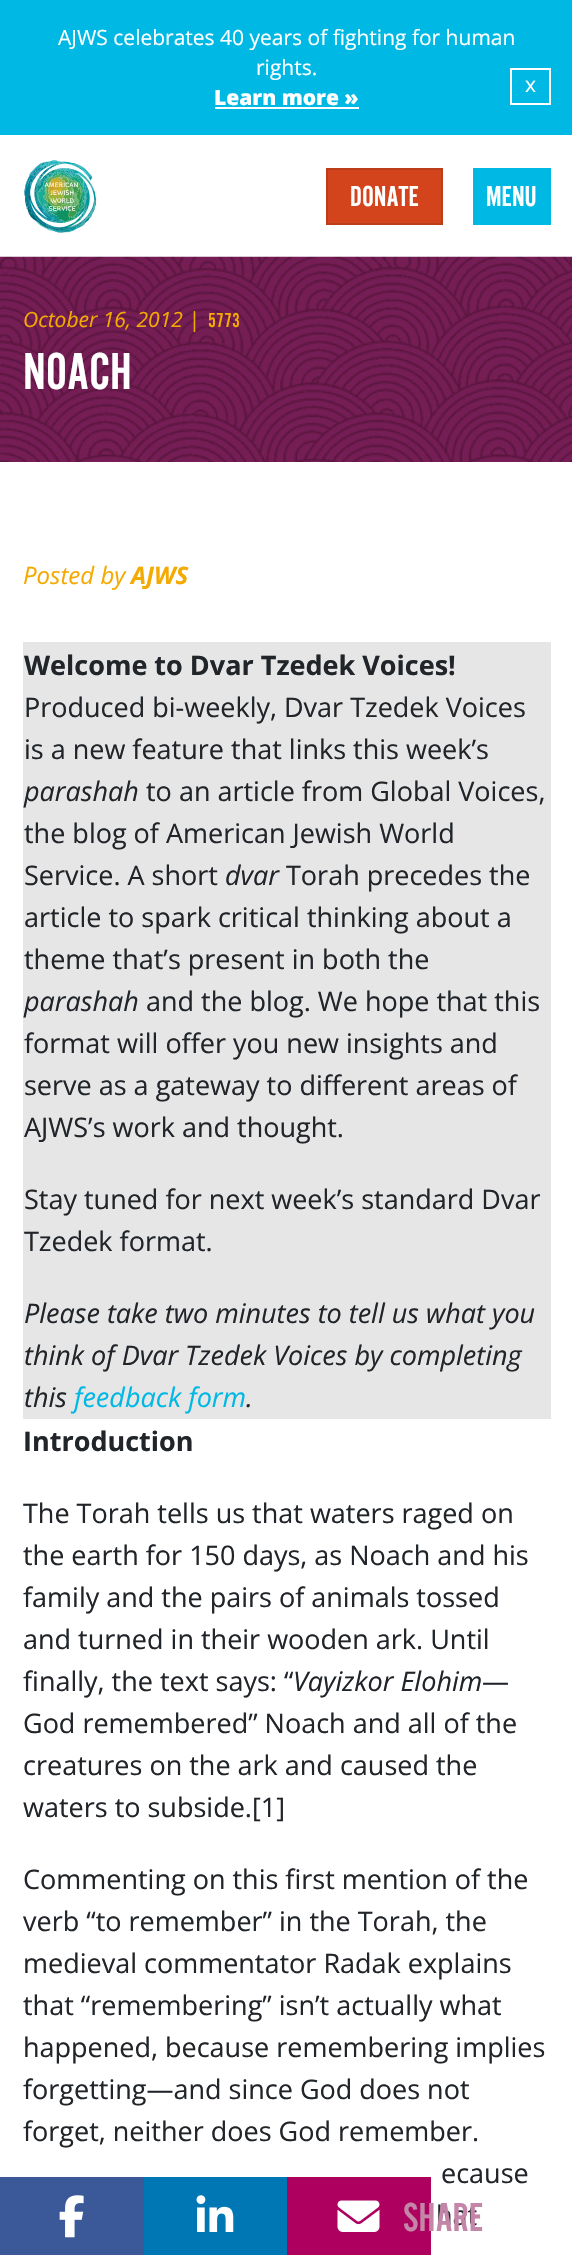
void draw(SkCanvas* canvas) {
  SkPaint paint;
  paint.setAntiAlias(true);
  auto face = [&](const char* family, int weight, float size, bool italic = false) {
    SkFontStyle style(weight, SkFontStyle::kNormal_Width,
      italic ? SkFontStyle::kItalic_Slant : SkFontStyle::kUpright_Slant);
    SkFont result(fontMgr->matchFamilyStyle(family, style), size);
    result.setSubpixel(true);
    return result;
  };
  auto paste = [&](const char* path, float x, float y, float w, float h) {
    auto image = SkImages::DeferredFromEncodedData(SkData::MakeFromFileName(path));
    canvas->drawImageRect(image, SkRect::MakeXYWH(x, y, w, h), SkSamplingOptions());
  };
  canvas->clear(0xffffffff);
  paint.setColor(0xff00b8e4);
  canvas->drawRect(SkRect::MakeXYWH(0, 0, 572, 135), paint);
  paint.setColor(0xffffffff);
  canvas->drawRect(SkRect::MakeXYWH(215, 107, 144, 2), paint);
  paint.setStroke(true);
  paint.setStrokeWidth(2);
  canvas->drawRect(SkRect::MakeXYWH(511, 69, 39, 35), paint);
  paste("img/1.png", 24, 160, 73, 73);
  paint.setStroke(false);
  paint.setColor(0xffd3441c);
  canvas->drawRect(SkRect::MakeXYWH(327, 169, 115, 55), paint);
  paint.setStroke(true);
  paint.setColor(0xffbc3d19);
  canvas->drawRect(SkRect::MakeXYWH(327, 169, 115, 55), paint);
  paint.setStroke(false);
  paint.setColor(0xff00b8e4);
  canvas->drawRect(SkRect::MakeXYWH(473, 168, 78, 57), paint);
  paste("img/2.png", 0, 256, 572, 206);
  paint.setColor(0xffe6e6e6);
  canvas->drawRect(SkRect::MakeXYWH(23, 642, 528, 777), paint);
  paint.setColor(0xff0077b5);
  canvas->drawRect(SkRect::MakeXYWH(144, 2177, 143, 78), paint);
  paste("img/3.png", 196, 2195, 38, 37);
  paint.setColor(0xffae005f);
  canvas->drawRect(SkRect::MakeXYWH(287, 2177, 144, 78), paint);
  paste("img/4.png", 337, 2200, 43, 32);
  paint.setColor(0xff3b5998);
  canvas->drawRect(SkRect::MakeXYWH(0, 2177, 144, 78), paint);
  paste("img/5.png", 59, 2195, 25, 43);
  auto f0 = face("Open Sans", 400, 21);
  paint.setColor(0xffffffff);
  canvas->drawString("AJWS celebrates 40 years of fighting for human", 58, 45, f0, paint);
  canvas->drawString("rights.", 256, 75, f0, paint);
  auto f1 = face("Open Sans", 800, 21);
  canvas->drawString("Learn more »", 214, 105, f1, paint);
  canvas->drawString("x", 525, 92, f0, paint);
  auto f2 = face("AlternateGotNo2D", 400, 30);
  canvas->drawString("DONATE", 350, 206, f2, paint);
  canvas->drawString("MENU", 486, 206, f2, paint);
  auto f3 = face("Open Sans", 400, 21, true);
  paint.setColor(0xfff4aa00);
  canvas->drawString("October 16, 2012 |", 23, 327, f3, paint);
  auto f4 = face("AlternateGotNo2D", 400, 21);
  canvas->drawString("5773", 208, 327, f4, paint);
  auto f5 = face("AlternateGotNo2D", 400, 54);
  paint.setColor(0xffffffff);
  canvas->drawString("NOACH", 23, 389, f5, paint);
  auto f6 = face("Open Sans", 400, 24, true);
  paint.setColor(0xfff4aa00);
  canvas->drawString("Posted by", 23, 584, f6, paint);
  auto f7 = face("Open Sans", 700, 24, true);
  canvas->drawString("AJWS", 131, 584, f7, paint);
  auto f8 = face("Open Sans", 700, 27);
  paint.setColor(0xff212529);
  canvas->drawString("Welcome to Dvar Tzedek Voices!", 24, 675, f8, paint);
  auto f9 = face("Open Sans", 400, 27);
  canvas->drawString("Produced bi-weekly, Dvar Tzedek Voices", 24, 717, f9, paint);
  canvas->drawString("is a new feature that links this week’s", 24, 759, f9, paint);
  auto f10 = face("Open Sans", 400, 27, true);
  canvas->drawString("parashah", 24, 801, f10, paint);
  {
    const struct { const char* s; float x, y; } items[] = {
      {"to an article from Global Voices,", 146, 801},
      {"the blog of American Jewish World", 24, 843},
      {"Service. A short", 24, 885},
    };
    for (auto [s, x, y] : items) {
      canvas->drawString(s, x, y, f9, paint);
    }
  }
  canvas->drawString("dvar", 225, 885, f10, paint);
  {
    const struct { const char* s; float x, y; } items[] = {
      {"Torah precedes the", 286, 885},
      {"article to spark critical thinking about a", 24, 927},
      {"theme that’s present in both the", 24, 969},
    };
    for (auto [s, x, y] : items) {
      canvas->drawString(s, x, y, f9, paint);
    }
  }
  canvas->drawString("parashah", 24, 1011, f10, paint);
  {
    const struct { const char* s; float x, y; } items[] = {
      {"and the blog. We hope that this", 146, 1011},
      {"format will offer you new insights and", 24, 1053},
      {"serve as a gateway to different areas of", 24, 1095},
      {"AJWS’s work and thought.", 24, 1137},
      {"Stay tuned for next week’s standard Dvar", 24, 1209},
      {"Tzedek format.", 24, 1251},
    };
    for (auto [s, x, y] : items) {
      canvas->drawString(s, x, y, f9, paint);
    }
  }
  {
    const struct { const char* s; float x, y; } items[] = {
      {"Please take two minutes to tell us what you", 24, 1323},
      {"think of Dvar Tzedek Voices by completing", 24, 1365},
      {"this", 24, 1407},
    };
    for (auto [s, x, y] : items) {
      canvas->drawString(s, x, y, f10, paint);
    }
  }
  paint.setColor(0xff00b8e4);
  canvas->drawString("feedback form", 74, 1407, f10, paint);
  paint.setColor(0xff212529);
  canvas->drawString(".", 246, 1407, f10, paint);
  canvas->drawString("Introduction", 23, 1451, f8, paint);
  {
    const struct { const char* s; float x, y; } items[] = {
      {"The Torah tells us that waters raged on", 23, 1523},
      {"the earth for 150 days, as Noach and his", 23, 1565},
      {"family and the pairs of animals tossed", 23, 1607},
      {"and turned in their wooden ark. Until", 23, 1649},
      {"finally, the text says: “", 23, 1691},
    };
    for (auto [s, x, y] : items) {
      canvas->drawString(s, x, y, f9, paint);
    }
  }
  canvas->drawString("Vayizkor Elohim", 293, 1691, f10, paint);
  {
    const struct { const char* s; float x, y; } items[] = {
      {"—", 482, 1691},
      {"God remembered” Noach and all of the", 23, 1733},
      {"creatures on the ark and caused the", 23, 1775},
      {"waters to subside.[1]", 23, 1817},
      {"Commenting on this first mention of the", 23, 1889},
      {"verb “to remember” in the Torah, the", 23, 1931},
      {"medieval commentator Radak explains", 23, 1973},
      {"that “remembering” isn’t actually what", 23, 2015},
      {"happened, because remembering implies", 23, 2057},
      {"forgetting—and since God does not", 23, 2099},
      {"forget, neither does God remember.", 23, 2141},
      {"ecause", 441, 2183},
      {"hat", 436, 2225},
    };
    for (auto [s, x, y] : items) {
      canvas->drawString(s, x, y, f9, paint);
    }
  }
  auto f11 = face("AlternateGotNo2D", 400, 42);
  paint.setColor(0xffc386a8);
  canvas->drawString("SHARE", 403, 2231, f11, paint);
}
